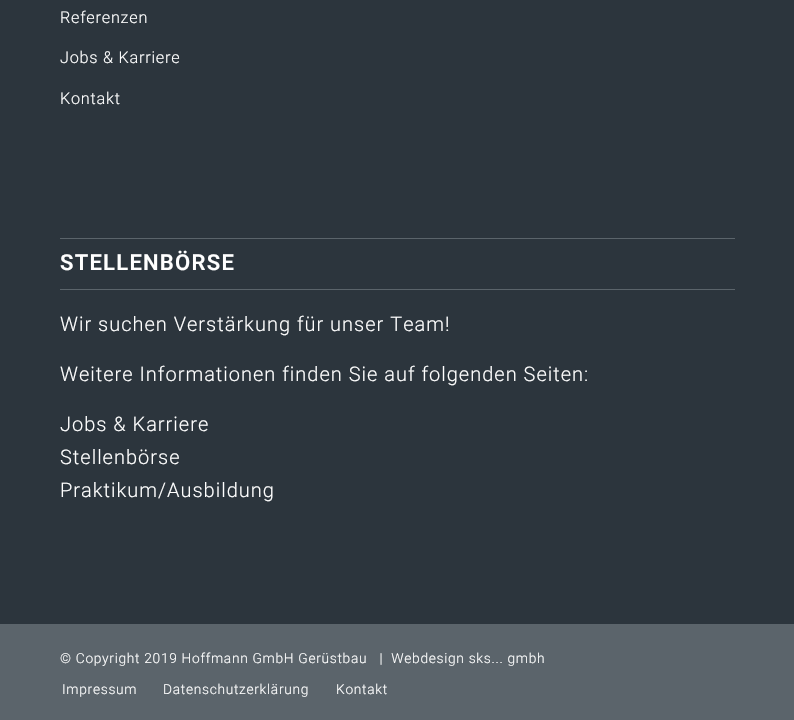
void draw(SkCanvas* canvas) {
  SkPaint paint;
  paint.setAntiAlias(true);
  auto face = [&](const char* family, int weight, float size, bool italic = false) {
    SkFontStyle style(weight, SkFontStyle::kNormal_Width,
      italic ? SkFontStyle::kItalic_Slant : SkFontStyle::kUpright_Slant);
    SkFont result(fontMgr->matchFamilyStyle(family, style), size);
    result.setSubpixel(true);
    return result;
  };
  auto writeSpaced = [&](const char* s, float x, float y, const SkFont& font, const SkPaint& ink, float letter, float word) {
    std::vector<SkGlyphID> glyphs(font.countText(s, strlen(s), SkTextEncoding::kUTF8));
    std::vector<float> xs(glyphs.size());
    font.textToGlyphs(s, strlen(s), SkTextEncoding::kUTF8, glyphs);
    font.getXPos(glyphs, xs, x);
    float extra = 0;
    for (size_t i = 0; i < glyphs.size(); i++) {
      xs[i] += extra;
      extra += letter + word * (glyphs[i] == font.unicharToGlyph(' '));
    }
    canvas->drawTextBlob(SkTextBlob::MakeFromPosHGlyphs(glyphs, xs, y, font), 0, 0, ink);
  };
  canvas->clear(0xff2c353d);
  {
    const struct { float x, y, w, h; SkColor color; } items[] = {
      {60, 238, 675, 1, 0xff5b646b},
      {60, 289, 675, 1, 0xff5b646b},
      {0, 624, 794, 96, 0xff5b646b},
    };
    for (auto [x, y, w, h, color] : items) {
      paint.setColor(color);
      canvas->drawRect(SkRect::MakeXYWH(x, y, w, h), paint);
    }
  }
  auto f0 = face("Roboto", 300, 16.25f);
  paint.setColor(0xffffffff);
  {
    const struct { const char* s; float x, y; } items[] = {
      {"Referenzen", 60, 23},
      {"Jobs & Karriere", 60, 63},
      {"Kontakt", 60, 104},
    };
    for (auto [s, x, y] : items) {
      writeSpaced(s, x, y, f0, paint, 0.75f, 0);
    }
  }
  auto f1 = face("Roboto", 600, 22);
  writeSpaced("STELLENBÖRSE", 60, 270, f1, paint, 1.25f, 0);
  auto f2 = face("Roboto", 300, 20);
  {
    const struct { const char* s; float x, y; } items[] = {
      {"Wir suchen Verstärkung für unser Team!", 60, 331},
      {"Weitere Informationen finden Sie auf folgenden Seiten:", 60, 381},
      {"Jobs & Karriere", 60, 431},
      {"Stellenbörse", 60, 464},
      {"Praktikum/Ausbildung", 60, 497},
    };
    for (auto [s, x, y] : items) {
      writeSpaced(s, x, y, f2, paint, 1, 0);
    }
  }
  auto f3 = face("Roboto", 300, 13.75f);
  {
    const struct { const char* s; float x, y; } items[] = {
      {"© Copyright 2019 Hoffmann GmbH Gerüstbau   |  Webdesign sks... gmbh", 60, 663},
      {"Impressum", 62, 694},
      {"Datenschutzerklärung", 163, 694},
      {"Kontakt", 336, 694},
    };
    for (auto [s, x, y] : items) {
      writeSpaced(s, x, y, f3, paint, 0.7f, 0);
    }
  }
}
